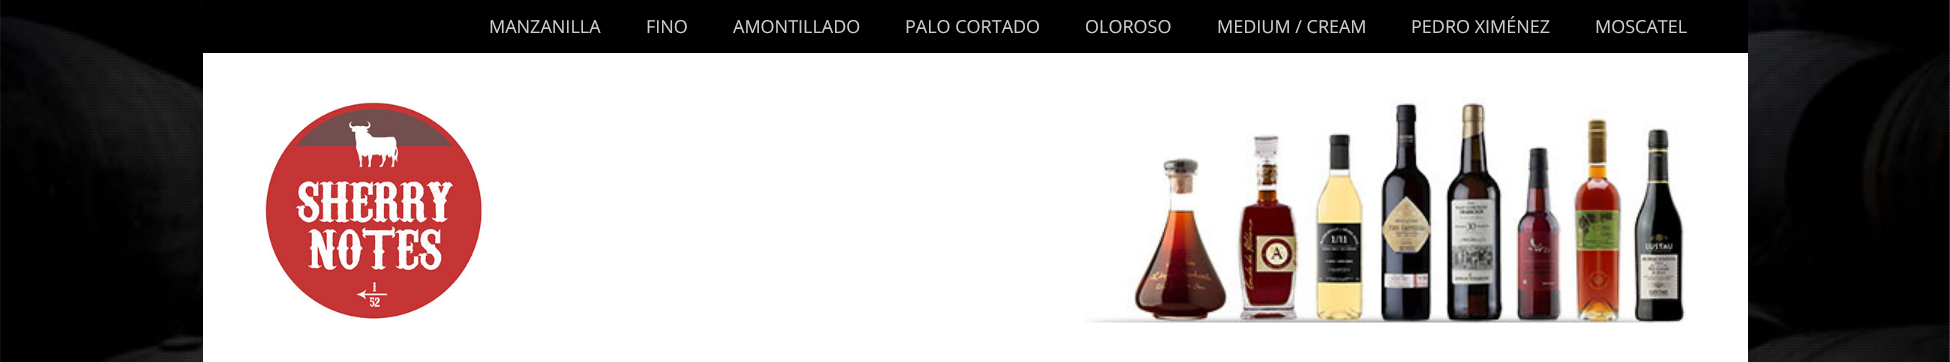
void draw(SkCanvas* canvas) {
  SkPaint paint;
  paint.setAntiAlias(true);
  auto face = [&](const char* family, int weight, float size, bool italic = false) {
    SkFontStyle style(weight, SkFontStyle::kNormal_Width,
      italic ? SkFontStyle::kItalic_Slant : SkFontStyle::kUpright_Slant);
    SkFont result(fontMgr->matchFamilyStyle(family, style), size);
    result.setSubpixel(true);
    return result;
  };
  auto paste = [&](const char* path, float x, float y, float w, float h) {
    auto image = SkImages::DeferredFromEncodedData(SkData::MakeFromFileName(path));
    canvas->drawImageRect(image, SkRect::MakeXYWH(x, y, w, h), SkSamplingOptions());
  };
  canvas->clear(0xffffffff);
  paste("img/1.png", 0, 0, 1950, 362);
  paste("img/2.png", 0, 0, 1950, 362);
  paint.setColor(0xff000000);
  canvas->drawRect(SkRect::MakeXYWH(203, 0, 1545, 53), paint);
  paint.setColor(0x1a000000);
  paint.setMaskFilter(SkMaskFilter::MakeBlur(kNormal_SkBlurStyle, 7.5f));
  canvas->drawRect(SkRect::MakeXYWH(203, 53, 1545, 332), paint);
  paint.setMaskFilter(nullptr);
  paint.setColor(0xffffffff);
  canvas->drawRect(SkRect::MakeXYWH(203, 53, 1545, 309), paint);
  paste("img/3.png", 262, 98, 222, 222);
  paste("img/4.png", 1085, 97, 603, 226);
  auto f0 = face("Open Sans", 400, 18);
  paint.setColor(0xffcccccc);
  {
    const struct { const char* s; float x, y; } items[] = {
      {"MANZANILLA", 489, 33},
      {"FINO", 646, 33},
      {"AMONTILLADO", 733, 33},
      {"PALO CORTADO", 905, 33},
      {"OLOROSO", 1085, 33},
      {"MEDIUM / CREAM", 1217, 33},
      {"PEDRO XIMÉNEZ", 1411, 33},
      {"MOSCATEL", 1595, 33},
    };
    for (auto [s, x, y] : items) {
      canvas->drawString(s, x, y, f0, paint);
    }
  }
}
